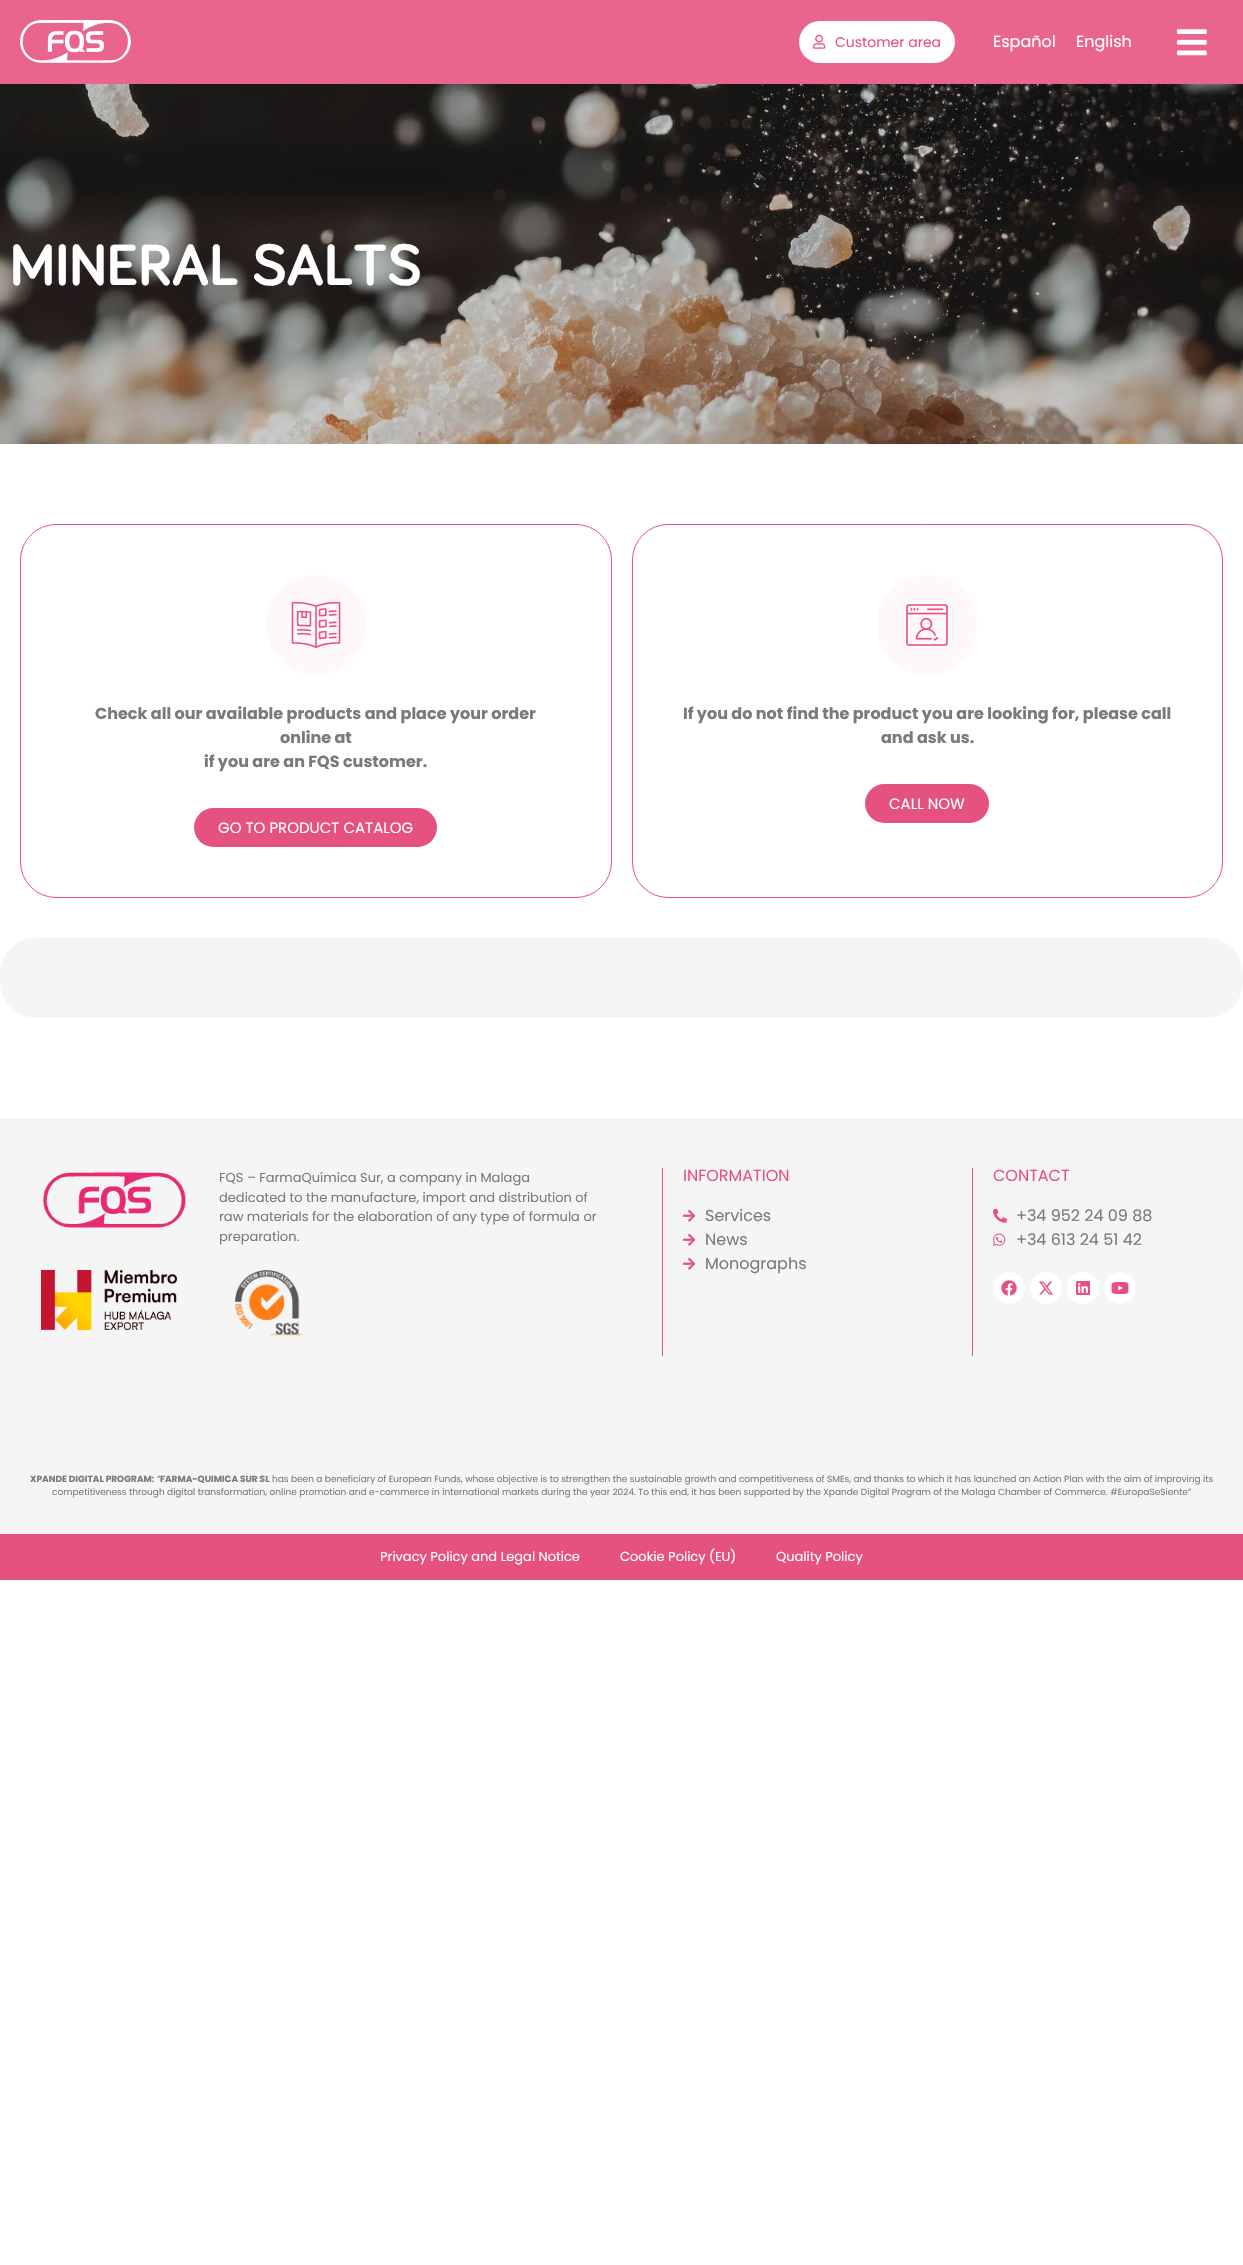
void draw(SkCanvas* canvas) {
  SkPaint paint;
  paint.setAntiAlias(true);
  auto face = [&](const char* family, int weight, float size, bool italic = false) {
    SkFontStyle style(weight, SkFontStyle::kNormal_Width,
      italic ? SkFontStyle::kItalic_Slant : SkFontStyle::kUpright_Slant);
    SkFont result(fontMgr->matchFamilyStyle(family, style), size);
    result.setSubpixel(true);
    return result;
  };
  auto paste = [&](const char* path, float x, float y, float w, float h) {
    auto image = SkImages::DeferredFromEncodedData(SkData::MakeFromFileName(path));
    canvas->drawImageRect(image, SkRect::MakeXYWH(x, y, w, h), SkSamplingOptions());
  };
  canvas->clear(0xffffffff);
  paint.setColor(0xffe9658e);
  canvas->drawRect(SkRect::MakeXYWH(0, 0, 1243, 84), paint);
  paste("img/1.png", 20, 20, 111, 43);
  paint.setColor(0xffffffff);
  canvas->drawRoundRect(SkRect::MakeXYWH(799, 21, 156, 42), 21, 21, paint);
  paste("img/2.png", 813, 34, 13, 15);
  paste("img/3.png", 1177, 29, 30, 27);
  paste("img/4.png", 0, 84, 1243, 360);
  paint.setStroke(true);
  paint.setStrokeWidth(1);
  paint.setColor(0xffe65280);
  canvas->drawRoundRect(SkRect::MakeXYWH(20.5f, 524.5f, 591, 373), 35.5f, 35.5f, paint);
  paint.setStroke(false);
  paint.setColor(0xfffff8fa);
  canvas->drawCircle(316, 625, 50, paint);
  paste("img/5.png", 291, 601, 50, 48);
  paint.setColor(0xffe65280);
  canvas->drawRoundRect(SkRect::MakeXYWH(194, 808, 243, 39), 19.5f, 19.5f, paint);
  paint.setStroke(true);
  canvas->drawRoundRect(SkRect::MakeXYWH(632.5f, 524.5f, 590, 373), 35.5f, 35.5f, paint);
  paint.setStroke(false);
  paint.setColor(0xfffff8fa);
  canvas->drawCircle(927, 625, 50, paint);
  paste("img/6.png", 906, 604, 42, 42);
  paint.setColor(0xffe65280);
  canvas->drawRoundRect(SkRect::MakeXYWH(865, 784, 124, 39), 19.5f, 19.5f, paint);
  paint.setColor(0xfff5f5f5);
  canvas->drawRoundRect(SkRect::MakeXYWH(0, 938, 1243, 80), 36, 36, paint);
  canvas->drawRect(SkRect::MakeXYWH(0, 1118, 1243, 416), paint);
  paste("img/7.png", 43, 1172, 143, 56);
  paste("img/8.png", 41, 1270, 136, 60);
  paste("img/9.png", 235, 1270, 68, 67);
  paint.setColor(0xffe65280);
  canvas->drawRect(SkRect::MakeXYWH(662, 1168, 1, 188), paint);
  paste("img/10.png", 683, 1209, 13, 13);
  paste("img/10.png", 683, 1233, 13, 13);
  paste("img/10.png", 683, 1257, 13, 13);
  canvas->drawRect(SkRect::MakeXYWH(972, 1168, 1, 188), paint);
  paste("img/11.png", 993, 1208, 14, 15);
  paste("img/12.png", 993, 1233, 13, 13);
  paint.setColor(0xffffffff);
  canvas->drawCircle(1009, 1288, 16, paint);
  paste("img/13.png", 1001, 1280, 16, 16);
  canvas->drawCircle(1046, 1288, 16, paint);
  paste("img/14.png", 1039, 1281, 15, 14);
  canvas->drawCircle(1083, 1288, 16, paint);
  paste("img/15.png", 1076, 1281, 14, 14);
  canvas->drawCircle(1120, 1288, 16, paint);
  paste("img/16.png", 1111, 1282, 18, 12);
  paint.setColor(0xffe65280);
  canvas->drawRect(SkRect::MakeXYWH(0, 1534, 1243, 46), paint);
  auto f0 = face("Poppins", 400, 14);
  canvas->drawString("Customer area", 835, 47, f0, paint);
  auto f1 = face("Poppins", 400, 16);
  paint.setColor(0xffffffff);
  canvas->drawString("Español", 993, 47, f1, paint);
  canvas->drawString("English", 1076, 47, f1, paint);
  auto f2 = face("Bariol", 700, 60);
  canvas->drawString("MINERAL SALTS", 10, 285, f2, paint);
  auto f3 = face("Poppins", 700, 16);
  paint.setColor(0xff7a7a7a);
  {
    const struct { const char* s; float x, y; } items[] = {
      {"Check all our available products and place your order", 95, 719},
      {"online at", 280, 743},
      {"if you are an FQS customer.", 204, 767},
    };
    for (auto [s, x, y] : items) {
      canvas->drawString(s, x, y, f3, paint);
    }
  }
  auto f4 = face("Poppins", 400, 15);
  paint.setColor(0xffffffff);
  canvas->drawString("GO TO PRODUCT CATALOG", 218, 833, f4, paint);
  paint.setColor(0xff7a7a7a);
  canvas->drawString("If you do not find the product you are looking for, please call", 683, 719, f3, paint);
  canvas->drawString("and ask us.", 881, 743, f3, paint);
  paint.setColor(0xffffffff);
  canvas->drawString("CALL NOW", 889, 809, f4, paint);
  auto f5 = face("Poppins", 400, 13);
  paint.setColor(0xff7a7a7a);
  {
    const struct { const char* s; float x, y; } items[] = {
      {"FQS – FarmaQuímica Sur, a company in Malaga", 219, 1182},
      {"dedicated to the manufacture, import and distribution of", 219, 1202},
      {"raw materials for the elaboration of any type of formula or", 219, 1221},
      {"preparation.", 219, 1241},
    };
    for (auto [s, x, y] : items) {
      canvas->drawString(s, x, y, f5, paint);
    }
  }
  paint.setColor(0xffe65280);
  canvas->drawString("INFORMATION", 683, 1181, f1, paint);
  paint.setColor(0xff7a7a7a);
  {
    const struct { const char* s; float x, y; } items[] = {
      {"Services", 705, 1221},
      {"News", 705, 1245},
      {"Monographs", 705, 1269},
    };
    for (auto [s, x, y] : items) {
      canvas->drawString(s, x, y, f1, paint);
    }
  }
  paint.setColor(0xffe65280);
  canvas->drawString("CONTACT", 993, 1181, f1, paint);
  paint.setColor(0xff7a7a7a);
  canvas->drawString("+34 952 24 09 88", 1016, 1221, f1, paint);
  canvas->drawString("+34 613 24 51 42", 1016, 1245, f1, paint);
  auto f6 = face("Poppins", 700, 9);
  canvas->drawString("XPANDE DIGITAL PROGRAM:", 30, 1482, f6, paint);
  auto f7 = face("Poppins", 400, 9);
  canvas->drawString("“", 157, 1482, f7, paint);
  canvas->drawString("FARMA-QUIMICA SUR SL", 160, 1482, f6, paint);
  canvas->drawString("has been a beneficiary of European Funds, whose objective is to strengthen the sustainable growth and competitiveness of SMEs, and thanks to which it has launched an Action Plan with the aim of improving its", 272, 1482, f7, paint);
  canvas->drawString("competitiveness through digital transformation, online promotion and e-commerce in international markets during the year 2024. To this end, it has been supported by the Xpande Digital Program of the Malaga Chamber of Commerce. #EuropaSeSiente”", 52, 1495, f7, paint);
  paint.setColor(0xffffffff);
  {
    const struct { const char* s; float x, y; } items[] = {
      {"Privacy Policy and Legal Notice", 380, 1561},
      {"Cookie Policy (EU)", 620, 1561},
      {"Quality Policy", 776, 1561},
    };
    for (auto [s, x, y] : items) {
      canvas->drawString(s, x, y, f5, paint);
    }
  }
}
